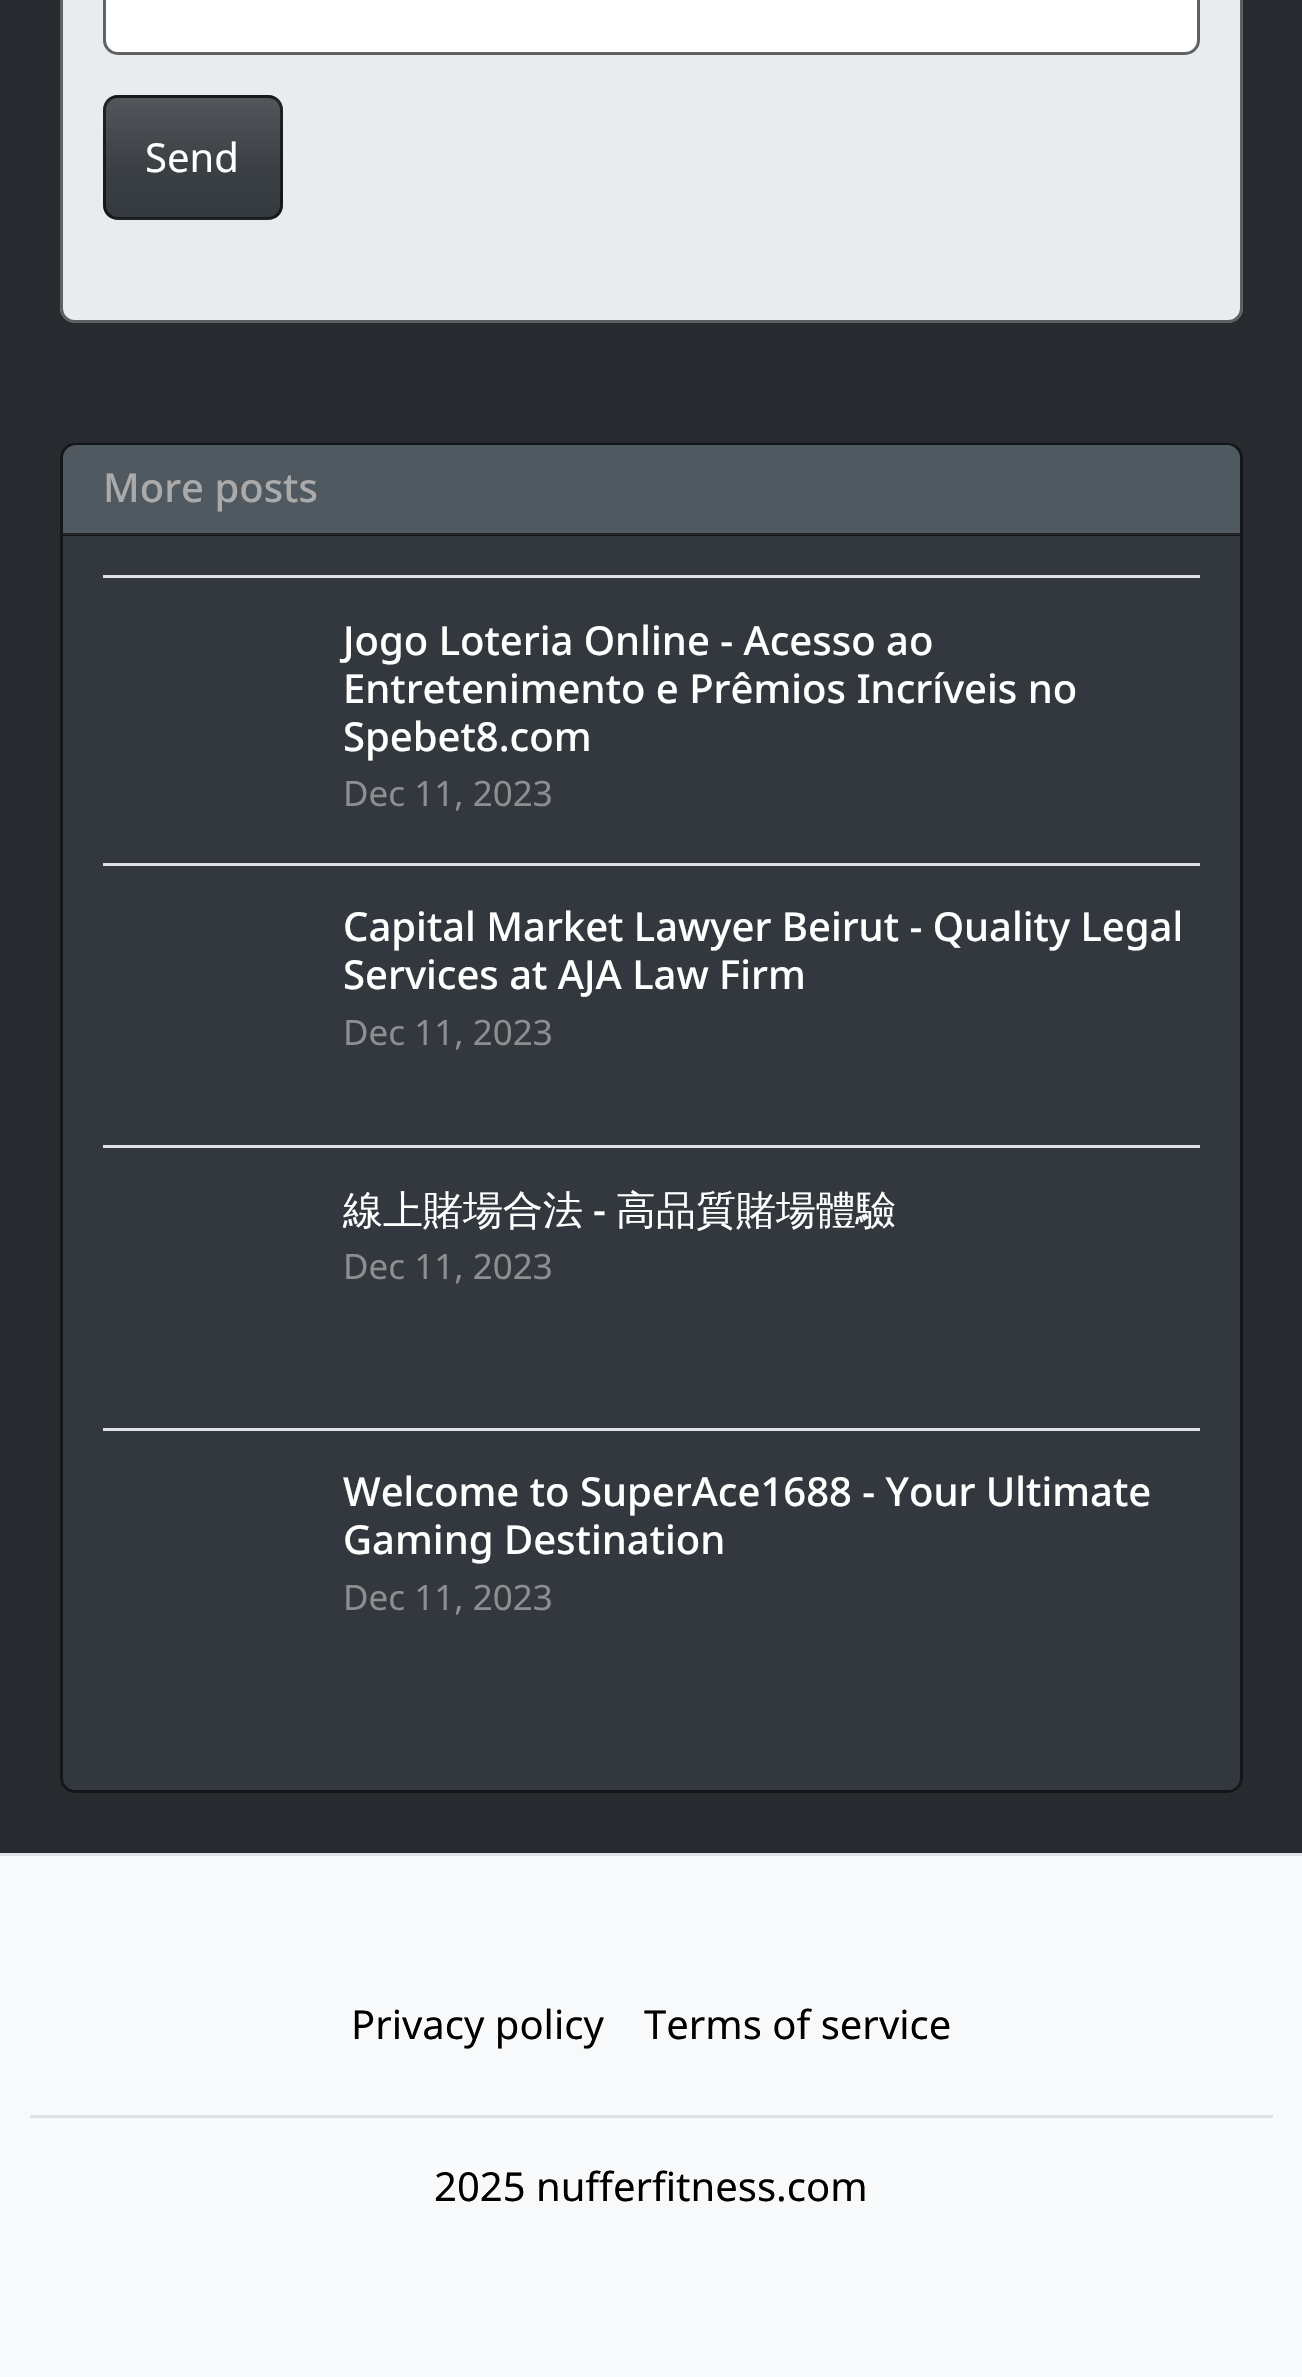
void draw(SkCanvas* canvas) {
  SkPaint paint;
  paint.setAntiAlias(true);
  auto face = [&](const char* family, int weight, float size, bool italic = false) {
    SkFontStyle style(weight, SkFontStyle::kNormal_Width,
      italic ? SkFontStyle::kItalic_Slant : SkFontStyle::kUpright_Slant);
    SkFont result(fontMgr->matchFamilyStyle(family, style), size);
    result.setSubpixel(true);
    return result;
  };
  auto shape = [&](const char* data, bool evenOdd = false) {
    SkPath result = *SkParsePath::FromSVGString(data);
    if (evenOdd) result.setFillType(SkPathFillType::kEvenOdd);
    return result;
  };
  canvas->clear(0xff272b30);
  paint.setColor(0xffe9ecef);
  canvas->drawRoundRect(SkRect::MakeXYWH(60, -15, 1183, 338), 15, 15, paint);
  paint.setStroke(true);
  paint.setStrokeWidth(3);
  paint.setColor(0x99000000);
  canvas->drawRoundRect(SkRect::MakeXYWH(61.5f, -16.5f, 1180, 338), 13.5f, 13.5f, paint);
  paint.setStroke(false);
  paint.setColor(0xffffffff);
  canvas->drawRoundRect(SkRect::MakeXYWH(105, -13, 1093, 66), 13, 13, paint);
  paint.setStroke(true);
  paint.setColor(0x99000000);
  canvas->drawRoundRect(SkRect::MakeXYWH(104.5f, -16.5f, 1094, 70), 13.5f, 13.5f, paint);
  canvas->save();
  canvas->clipPath(shape("M118 95H268C276.5 95 283 101.5 283 110V205C283 213.5 276.5 220 268 220H118C109.5 220 103 213.5 103 205V110C103 101.5 109.5 95 118 95Z"), true);
  paint.setStroke(false);
  {
    const SkColor colors[] = {0xff52565a, 0xff3a3f44, 0xff353a3f};
    const float stops[] = {0, 0.6f, 1};
    const SkPoint ends[] = {{193, -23}, {193, 98}};
    paint.setShader(SkGradientShader::MakeLinear(ends, colors, stops, 3, SkTileMode::kClamp));
    paint.setAlpha(255);
  }
  canvas->drawRect(SkRect::MakeXYWH(103, 95, 180, 3), paint);
  {
    const SkColor colors[] = {0xff52565a, 0xff3a3f44, 0xff353a3f};
    const float stops[] = {0, 0.6f, 1};
    const SkPoint ends[] = {{193, 98}, {193, 218}};
    paint.setShader(SkGradientShader::MakeLinear(ends, colors, stops, 3, SkTileMode::kClamp));
    paint.setAlpha(255);
  }
  canvas->drawRect(SkRect::MakeXYWH(103, 98, 180, 120), paint);
  {
    const SkColor colors[] = {0xff52565a, 0xff3a3f44, 0xff353a3f};
    const float stops[] = {0, 0.6f, 1};
    const SkPoint ends[] = {{193, 218}, {193, 338}};
    paint.setShader(SkGradientShader::MakeLinear(ends, colors, stops, 3, SkTileMode::kClamp));
    paint.setAlpha(255);
  }
  canvas->drawRect(SkRect::MakeXYWH(103, 218, 180, 2), paint);
  canvas->restore();
  paint.setStroke(true);
  paint.setShader(nullptr);
  paint.setColor(0x99000000);
  canvas->drawRoundRect(SkRect::MakeXYWH(104.5f, 96.5f, 177, 122), 13.5f, 13.5f, paint);
  paint.setStroke(false);
  paint.setColor(0xff32383e);
  canvas->drawRoundRect(SkRect::MakeXYWH(60, 443, 1183, 1350), 15, 15, paint);
  paint.setColor(0xff141619);
  canvas->drawRect(SkRect::MakeXYWH(63, 535, 1177, 1), paint);
  paint.setStroke(true);
  paint.setColor(0x99000000);
  canvas->drawRoundRect(SkRect::MakeXYWH(61.5f, 444.5f, 1180, 1347), 13.5f, 13.5f, paint);
  paint.setStroke(false);
  paint.setColor(0xff515960);
  canvas->drawPath(shape("M76 445H1227C1234 445 1240 451 1240 458V535H63V458C63 451 69 445 76 445Z"), paint);
  {
    const struct { float x, y, w, h; SkColor color; } items[] = {
      {63, 533, 1177, 2, 0xff202426},
      {103, 575, 1097, 3, 0xffdee2e6},
      {103, 863, 1097, 3, 0xffdee2e6},
      {103, 1145, 1097, 3, 0xffdee2e6},
      {103, 1428, 1097, 3, 0xffdee2e6},
      {0, 1856, 1302, 521, 0xfff8f9fa},
      {0, 1853, 1302, 3, 0xffdee2e6},
      {30, 2115, 1243, 3, 0xffdee2e6},
    };
    for (auto [x, y, w, h, color] : items) {
      paint.setColor(color);
      canvas->drawRect(SkRect::MakeXYWH(x, y, w, h), paint);
    }
  }
  auto f0 = face("Noto Sans", 400, 40);
  paint.setColor(0xffffffff);
  canvas->drawString("Send", 145, 172, f0, paint);
  auto f1 = face("Noto Sans", 500, 40);
  paint.setColor(0xffaaaaaa);
  canvas->drawString("More posts", 103, 502, f1, paint);
  paint.setColor(0xffffffff);
  {
    const struct { const char* s; float x, y; } items[] = {
      {"Jogo Loteria Online - Acesso ao", 343, 655},
      {"Entretenimento e Prêmios Incríveis no", 343, 703},
      {"Spebet8.com", 343, 751},
    };
    for (auto [s, x, y] : items) {
      canvas->drawString(s, x, y, f1, paint);
    }
  }
  auto f2 = face("Noto Sans", 400, 35);
  paint.setColor(0xff8c8e8f);
  canvas->drawString("Dec 11, 2023", 343, 806, f2, paint);
  paint.setColor(0xffffffff);
  canvas->drawString("Capital Market Lawyer Beirut - Quality Legal", 343, 941, f1, paint);
  canvas->drawString("Services at AJA Law Firm", 343, 989, f1, paint);
  paint.setColor(0xff8c8e8f);
  canvas->drawString("Dec 11, 2023", 343, 1045, f2, paint);
  auto f3 = face("WenQuanYi Zen Hei", 500, 40);
  paint.setColor(0xffffffff);
  canvas->drawString("線上賭場合法", 343, 1224, f3, paint);
  canvas->drawString("-", 593, 1224, f1, paint);
  canvas->drawString("高品質賭場體驗", 616, 1224, f3, paint);
  paint.setColor(0xff8c8e8f);
  canvas->drawString("Dec 11, 2023", 343, 1279, f2, paint);
  paint.setColor(0xffffffff);
  canvas->drawString("Welcome to SuperAce1688 - Your Ultimate", 343, 1506, f1, paint);
  canvas->drawString("Gaming Destination", 343, 1554, f1, paint);
  paint.setColor(0xff8c8e8f);
  canvas->drawString("Dec 11, 2023", 343, 1610, f2, paint);
  paint.setColor(0xff000000);
  {
    const struct { const char* s; float x, y; } items[] = {
      {"Privacy policy", 351, 2039},
      {"Terms of service", 644, 2039},
      {"2025 nufferfitness.com", 434, 2201},
    };
    for (auto [s, x, y] : items) {
      canvas->drawString(s, x, y, f0, paint);
    }
  }
}
